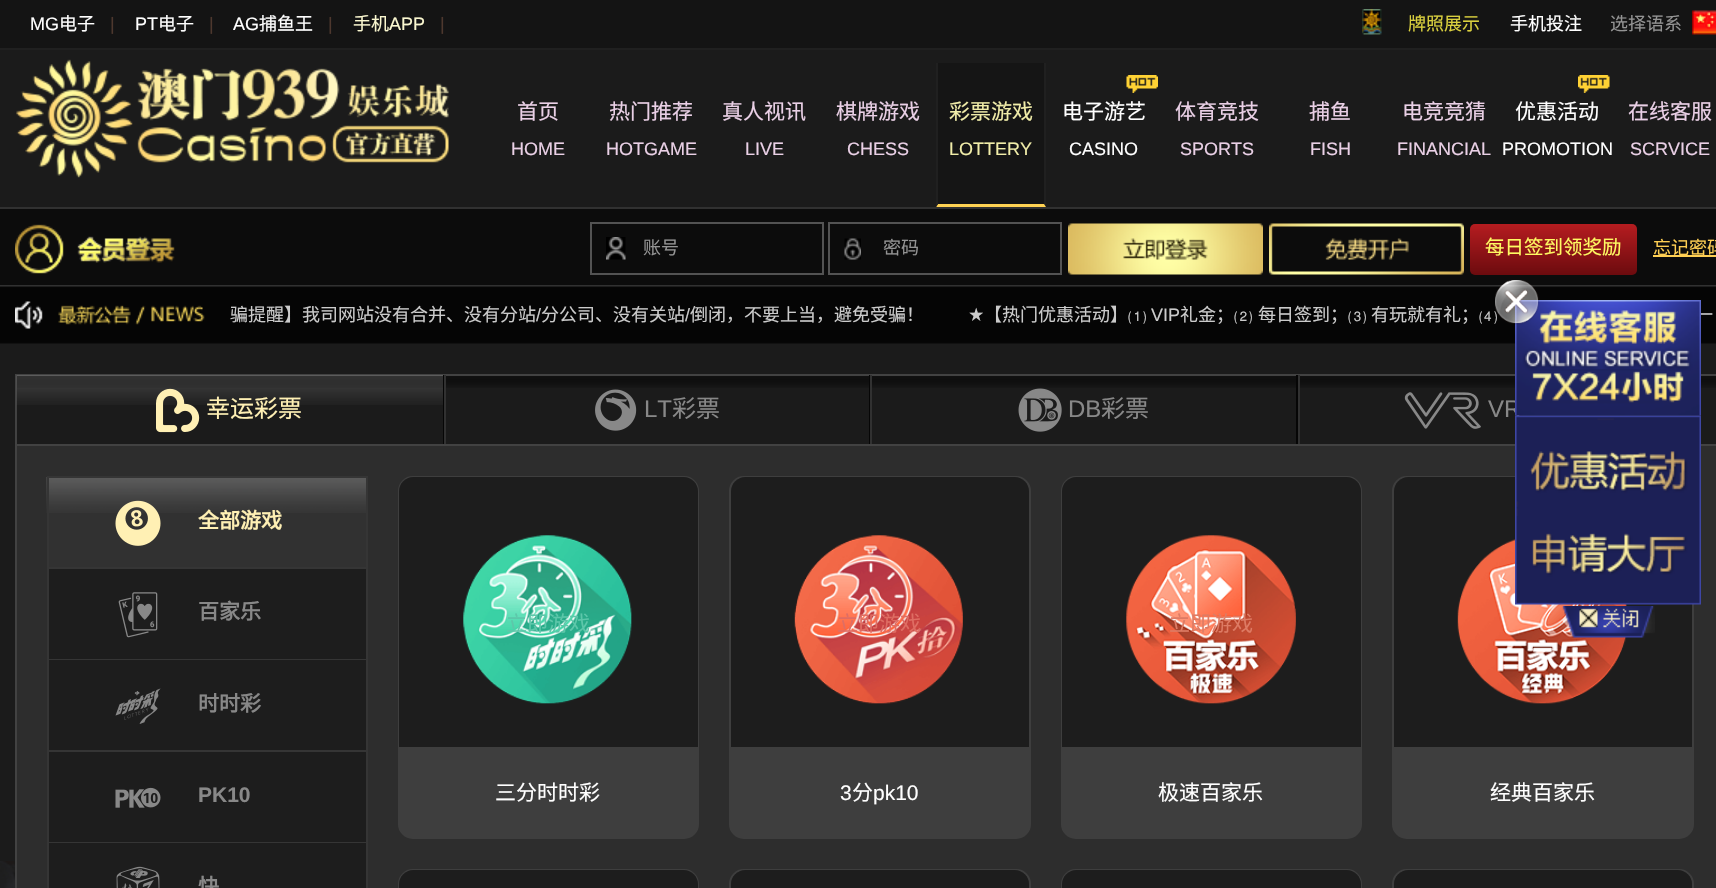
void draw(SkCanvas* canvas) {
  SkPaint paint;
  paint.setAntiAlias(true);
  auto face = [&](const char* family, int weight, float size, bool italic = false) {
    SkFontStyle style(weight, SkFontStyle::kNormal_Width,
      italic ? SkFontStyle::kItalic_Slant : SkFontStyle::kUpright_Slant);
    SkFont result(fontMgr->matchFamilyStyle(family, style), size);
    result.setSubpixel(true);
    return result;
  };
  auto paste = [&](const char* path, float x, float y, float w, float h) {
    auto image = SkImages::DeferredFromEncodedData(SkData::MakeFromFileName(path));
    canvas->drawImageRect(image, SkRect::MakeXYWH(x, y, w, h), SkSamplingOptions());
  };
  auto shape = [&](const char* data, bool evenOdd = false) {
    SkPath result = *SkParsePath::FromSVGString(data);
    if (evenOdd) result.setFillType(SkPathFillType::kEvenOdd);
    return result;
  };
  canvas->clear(0xff141414);
  paste("img/1.png", 1362, 9, 20, 26);
  paste("img/2.png", 1692, 10, 24, 25);
  paint.setColor(0xff1b1b1b);
  canvas->drawRect(SkRect::MakeXYWH(0, 50, 1716, 157), paint);
  paint.setColor(0xff202020);
  canvas->drawRect(SkRect::MakeXYWH(0, 48, 1716, 2), paint);
  paste("img/3.png", 16, 59, 433, 119);
  paint.setColor(0xff151515);
  canvas->drawRect(SkRect::MakeXYWH(936, 63, 110, 144), paint);
  paint.setColor(0xff202020);
  canvas->drawPath(shape("M1046 63V207L1044 204V63Z"), paint);
  paint.setColor(0xffffd253);
  canvas->drawPath(shape("M1046 207H936L938 204H1044Z"), paint);
  paint.setColor(0xff202020);
  canvas->drawPath(shape("M936 207V63H938V204Z"), paint);
  paste("img/4.png", 1126, 75, 32, 18);
  paste("img/5.png", 1578, 75, 32, 18);
  {
    const struct { float x, y, w, h; SkColor color; } items[] = {
      {0, 209, 1716, 76, 0xff0c0c0c},
      {0, 207, 1716, 2, 0xff313131},
      {0, 285, 1716, 2, 0xff313131},
    };
    for (auto [x, y, w, h, color] : items) {
      paint.setColor(color);
      canvas->drawRect(SkRect::MakeXYWH(x, y, w, h), paint);
    }
  }
  paste("img/6.png", 15, 224, 160, 50);
  paste("img/7.png", 606, 237, 20, 23);
  paint.setStroke(true);
  paint.setStrokeWidth(2);
  paint.setColor(0xff535353);
  canvas->drawRect(SkRect::MakeXYWH(591, 223, 232, 51), paint);
  paste("img/8.png", 844, 238, 17, 22);
  canvas->drawRect(SkRect::MakeXYWH(829, 223, 232, 51), paint);
  paste("img/9.png", 1068, 223, 195, 52);
  paste("img/10.png", 1269, 223, 195, 52);
  paint.setStroke(false);
  {
    const SkColor colors[] = {0xffb51c20, 0xff6c0b0e};
    const float stops[] = {0, 1};
    const SkPoint ends[] = {{1553, 224}, {1553, 275}};
    paint.setShader(SkGradientShader::MakeLinear(ends, colors, stops, 2, SkTileMode::kClamp));
    paint.setAlpha(255);
  }
  canvas->drawRoundRect(SkRect::MakeXYWH(1470, 224, 167, 51), 5, 5, paint);
  paint.setShader(nullptr);
  {
    const struct { float x, y, w, h; SkColor color; } items[] = {
      {1653, 255, 63, 2, 0xffffcf53},
      {0, 287, 1716, 574, 0xff1b1b1b},
      {17, 446, 1699, 442, 0xff2d2d2d},
    };
    for (auto [x, y, w, h, color] : items) {
      paint.setColor(color);
      canvas->drawRect(SkRect::MakeXYWH(x, y, w, h), paint);
    }
  }
  paint.setColor(0xff3e3e3e);
  canvas->drawRoundRect(SkRect::MakeXYWH(1393, 477, 300, 361), 14, 14, paint);
  paint.setStroke(true);
  canvas->drawRoundRect(SkRect::MakeXYWH(1393, 477, 300, 361), 14, 14, paint);
  paint.setStroke(false);
  paint.setColor(0xff1d1d1d);
  canvas->drawPath(shape("M1408 477H1678C1685.5 477 1692 483.5 1692 491V747H1394V491C1394 483.5 1400.5 477 1408 477Z"), paint);
  paste("img/33.png", 1457, 539, 170, 165);
  paste("img/14.png", 1560, 606, 95, 32);
  paste("img/15.png", 0, 861, 15, 27);
  paste("img/16.png", 0, 286, 1716, 58);
  paste("img/17.png", 15, 301, 190, 28);
  paste("img/18.png", 17, 376, 1699, 12);
  paint.setStroke(true);
  paint.setColor(0xff424242);
  canvas->drawRect(SkRect::MakeXYWH(16, 375, 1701, 70), paint);
  paste("img/19.png", 16, 375, 427, 30);
  paint.setStroke(false);
  paint.setColor(0xff060606);
  canvas->drawRect(SkRect::MakeXYWH(443, 375, 1, 69), paint);
  paste("img/20.png", 156, 388, 44, 45);
  canvas->drawRect(SkRect::MakeXYWH(869, 375, 1, 69), paint);
  paint.setColor(0xff313131);
  canvas->drawRect(SkRect::MakeXYWH(444, 375, 2, 69), paint);
  paste("img/21.png", 595, 389, 42, 42);
  paint.setColor(0xff060606);
  canvas->drawRect(SkRect::MakeXYWH(1296, 375, 2, 69), paint);
  paint.setColor(0xff313131);
  canvas->drawRect(SkRect::MakeXYWH(870, 375, 2, 69), paint);
  paste("img/22.png", 1018, 388, 44, 44);
  canvas->drawRect(SkRect::MakeXYWH(1298, 375, 2, 69), paint);
  paste("img/23.png", 1404, 392, 77, 37);
  paint.setColor(0xff424242);
  canvas->drawRect(SkRect::MakeXYWH(15, 446, 2, 442), paint);
  paint.setColor(0xff313131);
  canvas->drawRect(SkRect::MakeXYWH(49, 478, 317, 89), paint);
  paste("img/24.png", 46, 477, 320, 36);
  paint.setStroke(true);
  paint.setColor(0xff353535);
  canvas->drawRect(SkRect::MakeXYWH(48, 477, 319, 91), paint);
  paste("img/25.png", 115, 500, 46, 46);
  paint.setStroke(false);
  {
    const struct { float x, y, w, h; SkColor color; } items[] = {
      {49, 569, 317, 90, 0xff1d1d1d},
      {366, 569, 2, 319, 0xff353535},
      {47, 659, 321, 1, 0xff353535},
      {47, 569, 2, 91, 0xff353535},
    };
    for (auto [x, y, w, h, color] : items) {
      paint.setColor(color);
      canvas->drawRect(SkRect::MakeXYWH(x, y, w, h), paint);
    }
  }
  paste("img/26.png", 118, 592, 40, 46);
  {
    const struct { float x, y, w, h; SkColor color; } items[] = {
      {49, 660, 317, 90, 0xff1d1d1d},
      {47, 750, 321, 2, 0xff353535},
      {47, 660, 2, 92, 0xff353535},
    };
    for (auto [x, y, w, h, color] : items) {
      paint.setColor(color);
      canvas->drawRect(SkRect::MakeXYWH(x, y, w, h), paint);
    }
  }
  paste("img/27.png", 115, 688, 46, 36);
  {
    const struct { float x, y, w, h; SkColor color; } items[] = {
      {49, 752, 317, 90, 0xff1d1d1d},
      {47, 842, 321, 1, 0xff353535},
      {47, 752, 2, 136, 0xff353535},
    };
    for (auto [x, y, w, h, color] : items) {
      paint.setColor(color);
      canvas->drawRect(SkRect::MakeXYWH(x, y, w, h), paint);
    }
  }
  paste("img/28.png", 115, 787, 46, 21);
  paint.setColor(0xff1d1d1d);
  canvas->drawRect(SkRect::MakeXYWH(49, 843, 317, 45), paint);
  paste("img/29.png", 116, 866, 44, 22);
  paint.setColor(0xff3e3e3e);
  canvas->drawRoundRect(SkRect::MakeXYWH(399, 477, 299, 361), 14, 14, paint);
  paint.setStroke(true);
  canvas->drawRoundRect(SkRect::MakeXYWH(399, 477, 299, 361), 14, 14, paint);
  paint.setStroke(false);
  paint.setColor(0xff1d1d1d);
  canvas->drawPath(shape("M413 477H684C691.5 477 698 483.5 698 491V747H399V491C399 483.5 405.5 477 413 477Z"), paint);
  paste("img/30.png", 463, 535, 169, 169);
  paint.setColor(0xff3e3e3e);
  canvas->drawRoundRect(SkRect::MakeXYWH(730, 477, 300, 361), 14, 14, paint);
  paint.setStroke(true);
  canvas->drawRoundRect(SkRect::MakeXYWH(730, 477, 300, 361), 14, 14, paint);
  paint.setStroke(false);
  paint.setColor(0xff1d1d1d);
  canvas->drawPath(shape("M745 477H1015C1022.5 477 1029 483.5 1029 491V747H731V491C731 483.5 737.5 477 745 477Z"), paint);
  paste("img/31.png", 794, 535, 169, 169);
  paint.setColor(0xff3e3e3e);
  canvas->drawRoundRect(SkRect::MakeXYWH(1062, 477, 299, 361), 14, 14, paint);
  paint.setStroke(true);
  canvas->drawRoundRect(SkRect::MakeXYWH(1062, 477, 299, 361), 14, 14, paint);
  paint.setStroke(false);
  paint.setColor(0xff1d1d1d);
  canvas->drawPath(shape("M1076 477H1347C1354.5 477 1361 483.5 1361 491V747H1062V491C1062 483.5 1068.5 477 1076 477Z"), paint);
  paste("img/32.png", 1126, 535, 170, 169);
  paint.setStroke(true);
  paint.setColor(0xff3e3e3e);
  canvas->drawRoundRect(SkRect::MakeXYWH(399, 870, 299, 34), 14, 14, paint);
  paint.setStroke(false);
  paint.setColor(0xff1d1d1d);
  canvas->drawPath(shape("M413 870H684C691.5 870 698 876.5 698 884V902H399V884C399 876.5 405.5 870 413 870Z"), paint);
  paint.setStroke(true);
  paint.setColor(0xff3e3e3e);
  canvas->drawRoundRect(SkRect::MakeXYWH(730, 870, 300, 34), 14, 14, paint);
  paint.setStroke(false);
  paint.setColor(0xff1d1d1d);
  canvas->drawPath(shape("M745 870H1015C1022.5 870 1029 876.5 1029 884V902H731V884C731 876.5 737.5 870 745 870Z"), paint);
  paint.setStroke(true);
  paint.setColor(0xff3e3e3e);
  canvas->drawRoundRect(SkRect::MakeXYWH(1062, 870, 299, 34), 14, 14, paint);
  paint.setStroke(false);
  paint.setColor(0xff1d1d1d);
  canvas->drawPath(shape("M1076 870H1347C1354.5 870 1361 876.5 1361 884V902H1062V884C1062 876.5 1068.5 870 1076 870Z"), paint);
  paint.setStroke(true);
  paint.setColor(0xff3e3e3e);
  canvas->drawRoundRect(SkRect::MakeXYWH(1393, 870, 300, 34), 14, 14, paint);
  paint.setStroke(false);
  paint.setColor(0xff1d1d1d);
  canvas->drawPath(shape("M1408 870H1678C1685.5 870 1692 876.5 1692 884V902H1394V884C1394 876.5 1400.5 870 1408 870Z"), paint);
  auto f0 = face("Liberation Sans", 400, 18);
  paint.setColor(0xffffffff);
  canvas->drawString("MG", 30, 30, f0, paint);
  auto f1 = face("Noto Sans CJK SC", 400, 18);
  canvas->drawString("电子", 59, 30, f1, paint);
  paint.setColor(0xff4e382e);
  canvas->drawString("|", 110, 30, f0, paint);
  paint.setColor(0xffffffff);
  canvas->drawString("PT", 135, 30, f0, paint);
  canvas->drawString("电子", 158, 30, f1, paint);
  paint.setColor(0xff4e382e);
  canvas->drawString("|", 209, 30, f0, paint);
  paint.setColor(0xffffffff);
  canvas->drawString("AG", 233, 30, f0, paint);
  canvas->drawString("捕鱼王", 259, 30, f1, paint);
  paint.setColor(0xff4e382e);
  canvas->drawString("|", 328, 30, f0, paint);
  paint.setColor(0xfffbf8d0);
  canvas->drawString("手机", 353, 30, f1, paint);
  canvas->drawString("APP", 389, 30, f0, paint);
  paint.setColor(0xff4e382e);
  canvas->drawString("|", 440, 30, f0, paint);
  paint.setColor(0xffdad03e);
  canvas->drawString("牌照展示", 1408, 30, f1, paint);
  paint.setColor(0xffffffff);
  canvas->drawString("手机投注", 1510, 30, f1, paint);
  paint.setColor(0xff949494);
  canvas->drawString("选择语系", 1610, 30, f1, paint);
  auto f2 = face("Noto Sans CJK SC", 400, 21);
  paint.setColor(0xffead0e6);
  canvas->drawString("首页", 517, 119, f2, paint);
  canvas->drawString("HOME", 511, 155, f0, paint);
  canvas->drawString("热门推荐", 609, 119, f2, paint);
  canvas->drawString("HOTGAME", 606, 155, f0, paint);
  canvas->drawString("真人视讯", 722, 119, f2, paint);
  canvas->drawString("LIVE", 745, 155, f0, paint);
  canvas->drawString("棋牌游戏", 836, 119, f2, paint);
  canvas->drawString("CHESS", 847, 155, f0, paint);
  paint.setColor(0xfff1eda9);
  canvas->drawString("彩票游戏", 949, 119, f2, paint);
  canvas->drawString("LOTTERY", 949, 155, f0, paint);
  paint.setColor(0xffffffff);
  canvas->drawString("电子游艺", 1062, 119, f2, paint);
  canvas->drawString("CASINO", 1069, 155, f0, paint);
  paint.setColor(0xffead0e6);
  canvas->drawString("体育竞技", 1175, 119, f2, paint);
  canvas->drawString("SPORTS", 1180, 155, f0, paint);
  canvas->drawString("捕鱼", 1309, 119, f2, paint);
  canvas->drawString("FISH", 1310, 155, f0, paint);
  canvas->drawString("电竞竞猜", 1402, 119, f2, paint);
  canvas->drawString("FINANCIAL", 1397, 155, f0, paint);
  paint.setColor(0xffffffff);
  canvas->drawString("优惠活动", 1515, 119, f2, paint);
  canvas->drawString("PROMOTION", 1502, 155, f0, paint);
  paint.setColor(0xffead0e6);
  canvas->drawString("在线客服", 1628, 119, f2, paint);
  canvas->drawString("SCRVICE", 1630, 155, f0, paint);
  paint.setColor(0xff949494);
  canvas->drawString("账号", 643, 254, f1, paint);
  canvas->drawString("密码", 883, 254, f1, paint);
  auto f3 = face("Noto Sans CJK SC", 400, 19.5f);
  paint.setColor(0xfffffa62);
  canvas->drawString("每日签到领奖励", 1485, 254, f3, paint);
  paint.setColor(0xffffcf53);
  canvas->drawString("忘记密码", 1653, 254, f1, paint);
  paint.setColor(0xffcbcbcb);
  canvas->drawString("骗提醒】我司网站没有合并、没有分站", 230, 321, f1, paint);
  canvas->drawString("/", 536, 321, f0, paint);
  canvas->drawString("分公司、没有关站", 541, 321, f1, paint);
  canvas->drawString("/", 685, 321, f0, paint);
  canvas->drawString("倒闭，不要上当，避免受骗！", 690, 321, f1, paint);
  auto f4 = face("FreeSans", 400, 18);
  canvas->drawString("★", 969, 321, f4, paint);
  canvas->drawString("【热门优惠活动】", 984, 321, f1, paint);
  canvas->drawString("⑴", 1128, 321, f4, paint);
  canvas->drawString("VIP", 1151, 321, f0, paint);
  canvas->drawString("礼金；", 1180, 321, f1, paint);
  canvas->drawString("⑵", 1234, 321, f4, paint);
  canvas->drawString("每日签到；", 1258, 321, f1, paint);
  canvas->drawString("⑶", 1348, 321, f4, paint);
  canvas->drawString("有玩就有礼；", 1371, 321, f1, paint);
  canvas->drawString("⑷", 1479, 321, f4, paint);
  canvas->drawString("一", 1695, 321, f1, paint);
  auto f5 = face("Noto Sans CJK SC", 400, 24);
  paint.setColor(0xfffff0b4);
  canvas->drawString("幸运彩票", 206, 417, f5, paint);
  auto f6 = face("Liberation Sans", 400, 24);
  paint.setColor(0xff888888);
  canvas->drawString("LT", 644, 417, f6, paint);
  canvas->drawString("彩票", 672, 417, f5, paint);
  canvas->drawString("DB", 1068, 417, f6, paint);
  canvas->drawString("彩票", 1101, 417, f5, paint);
  canvas->drawString("VR", 1488, 417, f6, paint);
  paste("img/12.png", 1515, 300, 186, 116);
  paste("img/11.png", 1495, 280, 45, 45);
  paste("img/13.png", 1515, 415, 186, 190);
  auto f7 = face("Noto Sans CJK SC", 700, 21);
  paint.setColor(0xfffff0b4);
  canvas->drawString("全部游戏", 198, 528, f7, paint);
  paint.setColor(0xff888888);
  canvas->drawString("百家乐", 198, 619, f7, paint);
  canvas->drawString("时时彩", 198, 711, f7, paint);
  auto f8 = face("Liberation Sans", 700, 21);
  canvas->drawString("PK10", 198, 802, f8, paint);
  canvas->drawString("快", 198, 894, f7, paint);
  paint.setColor(0xff5dc7aa);
  canvas->drawString("立即游戏", 506, 631, f2, paint);
  paint.setColor(0xffffffff);
  canvas->drawString("三分时时彩", 495, 800, f2, paint);
  paint.setColor(0xffdf6d63);
  canvas->drawString("立即游戏", 837, 631, f2, paint);
  auto f9 = face("Liberation Sans", 400, 21);
  paint.setColor(0xffffffff);
  canvas->drawString("3", 840, 800, f9, paint);
  canvas->drawString("分", 852, 800, f2, paint);
  canvas->drawString("pk10", 873, 800, f9, paint);
  paint.setColor(0xffde7b64);
  canvas->drawString("立即游戏", 1169, 631, f2, paint);
  paint.setColor(0xffffffff);
  canvas->drawString("极速百家乐", 1158, 800, f2, paint);
  canvas->drawString("经典百家乐", 1490, 800, f2, paint);
}
